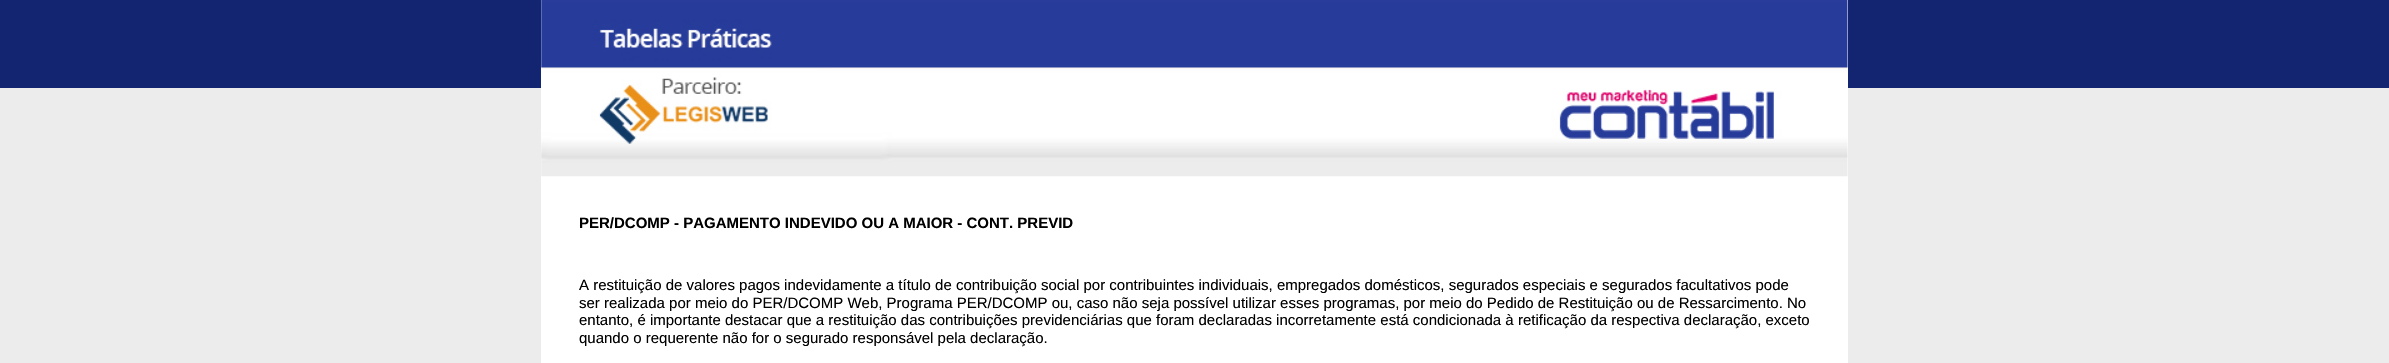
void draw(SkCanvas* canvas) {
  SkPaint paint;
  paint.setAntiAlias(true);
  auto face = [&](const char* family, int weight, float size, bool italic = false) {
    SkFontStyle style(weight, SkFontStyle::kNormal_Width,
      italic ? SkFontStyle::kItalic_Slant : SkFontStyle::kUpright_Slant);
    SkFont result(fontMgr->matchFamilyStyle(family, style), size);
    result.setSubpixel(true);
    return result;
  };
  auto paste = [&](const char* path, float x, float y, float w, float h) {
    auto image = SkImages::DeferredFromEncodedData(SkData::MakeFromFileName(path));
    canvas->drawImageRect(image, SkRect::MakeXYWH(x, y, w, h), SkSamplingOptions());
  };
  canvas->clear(0xffececec);
  paint.setColor(0xff132571);
  canvas->drawRect(SkRect::MakeXYWH(0, 0, 2389, 88), paint);
  paint.setColor(0xffffffff);
  canvas->drawRect(SkRect::MakeXYWH(541, 0, 1307, 363), paint);
  paste("img/1.png", 541, 0, 1307, 177);
  auto f0 = face("Liberation Sans", 700, 15);
  paint.setColor(0xff000000);
  canvas->drawString("PER/DCOMP - PAGAMENTO INDEVIDO OU A MAIOR - CONT. PREVID", 579, 228, f0, paint);
  auto f1 = face("Liberation Sans", 400, 15);
  {
    const struct { const char* s; float x, y; } items[] = {
      {"A restituição de valores pagos indevidamente a título de contribuição social por contribuintes individuais, empregados domésticos, segurados especiais e segurados facultativos pode", 579, 290},
      {"ser realizada por meio do PER/DCOMP Web, Programa PER/DCOMP ou, caso não seja possível utilizar esses programas, por meio do Pedido de Restituição ou de Ressarcimento. No", 579, 308},
      {"entanto, é importante destacar que a restituição das contribuições previdenciárias que foram declaradas incorretamente está condicionada à retificação da respectiva declaração, exceto", 579, 325},
      {"quando o requerente não for o segurado responsável pela declaração.", 579, 343},
    };
    for (auto [s, x, y] : items) {
      canvas->drawString(s, x, y, f1, paint);
    }
  }
}
